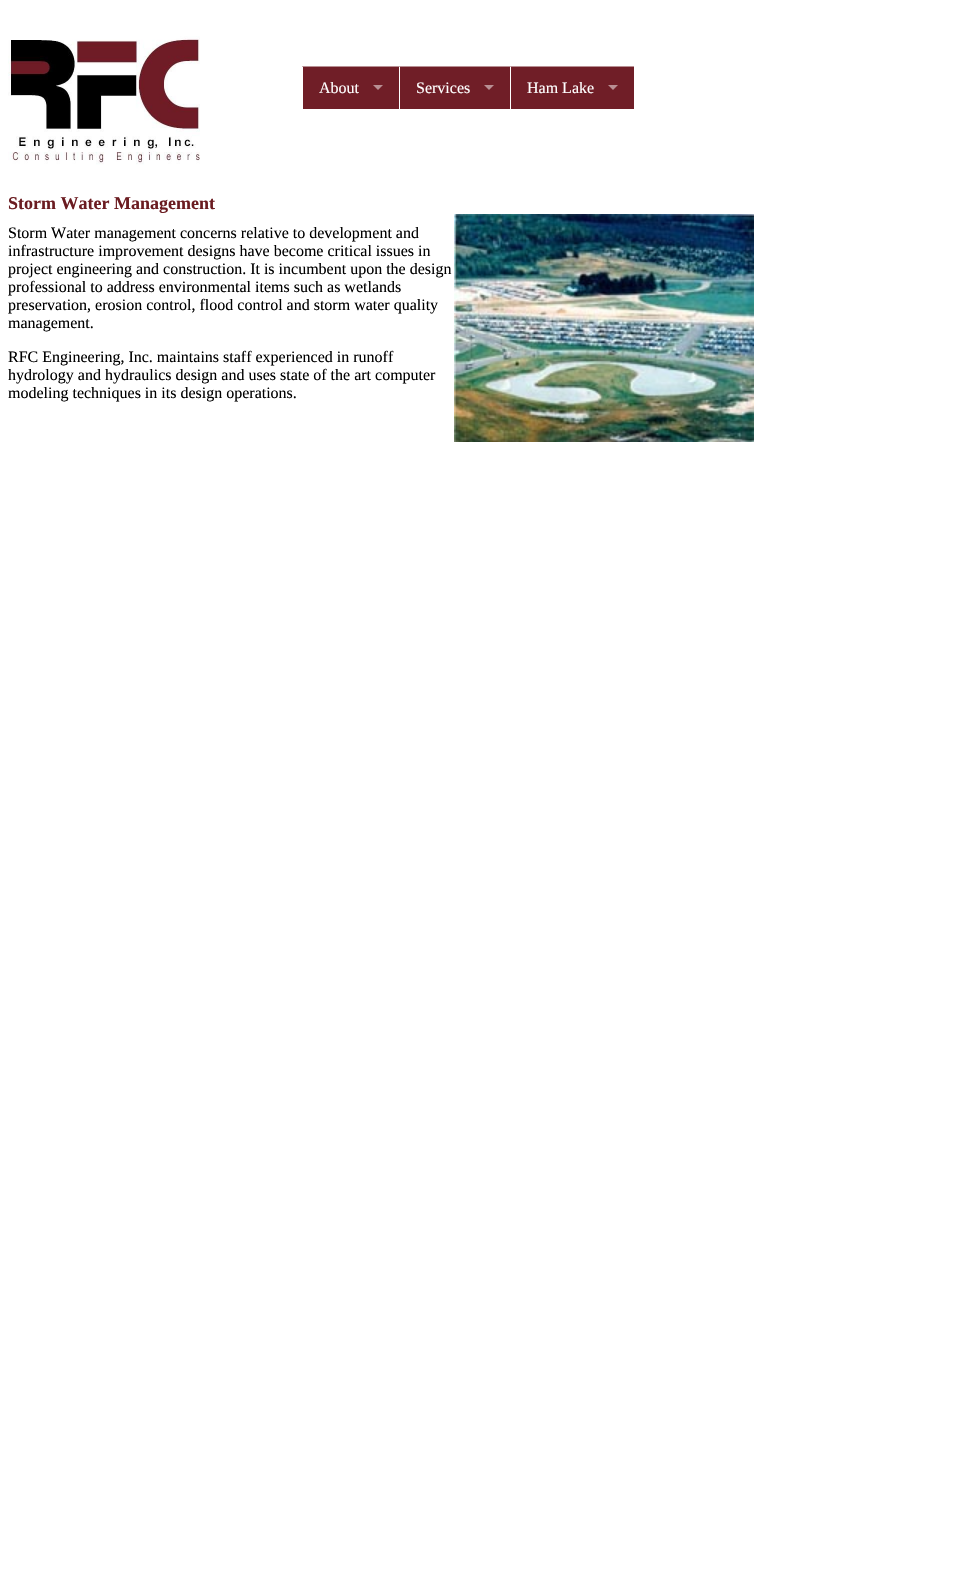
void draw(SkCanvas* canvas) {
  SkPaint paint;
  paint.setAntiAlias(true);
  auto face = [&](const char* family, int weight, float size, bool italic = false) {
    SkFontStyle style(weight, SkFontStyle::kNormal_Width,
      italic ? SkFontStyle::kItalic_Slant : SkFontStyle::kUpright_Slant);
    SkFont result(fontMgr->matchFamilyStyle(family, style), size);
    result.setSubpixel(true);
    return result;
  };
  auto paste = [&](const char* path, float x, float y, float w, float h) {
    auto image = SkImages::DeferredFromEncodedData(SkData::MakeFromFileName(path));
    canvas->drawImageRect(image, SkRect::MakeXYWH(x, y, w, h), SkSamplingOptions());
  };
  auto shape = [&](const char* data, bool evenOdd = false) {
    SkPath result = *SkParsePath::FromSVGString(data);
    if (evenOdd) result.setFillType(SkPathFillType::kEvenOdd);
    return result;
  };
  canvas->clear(0xffffffff);
  paste("img/1.png", 8, 36, 192, 129);
  paint.setColor(0xff701e27);
  canvas->drawRect(SkRect::MakeXYWH(302, 66, 332, 43), paint);
  paint.setColor(0xffb88f93);
  canvas->drawPath(shape("M302 66H399V67H303Z"), paint);
  paint.setColor(0xffffffff);
  canvas->drawPath(shape("M302 109V66L303 67V109Z"), paint);
  paint.setColor(0xffb88f93);
  canvas->drawPath(shape("M373 85H383L378 90Z"), paint);
  canvas->drawPath(shape("M399 66H510V67H400Z"), paint);
  paint.setColor(0xffffffff);
  canvas->drawPath(shape("M399 109V66L400 67V109Z"), paint);
  paint.setColor(0xffb88f93);
  canvas->drawPath(shape("M484 85H494L489 90Z"), paint);
  canvas->drawPath(shape("M510 66H634V67H511Z"), paint);
  paint.setColor(0xffffffff);
  canvas->drawPath(shape("M510 109V66L511 67V109Z"), paint);
  paint.setColor(0xffb88f93);
  canvas->drawPath(shape("M608 85H618L613 90Z"), paint);
  paste("img/2.png", 454, 214, 300, 228);
  auto f0 = face("Liberation Serif", 400, 16);
  paint.setColor(0xffffffff);
  {
    const struct { const char* s; float x, y; } items[] = {
      {"About", 319, 93},
      {"Services", 416, 93},
      {"Ham Lake", 527, 93},
    };
    for (auto [s, x, y] : items) {
      canvas->drawString(s, x, y, f0, paint);
    }
  }
  auto f1 = face("Liberation Serif", 700, 18);
  paint.setColor(0xff6b1c21);
  canvas->drawString("Storm Water Management", 8, 209, f1, paint);
  paint.setColor(0xff000000);
  {
    const struct { const char* s; float x, y; } items[] = {
      {"Storm Water management concerns relative to development and", 8, 238},
      {"infrastructure improvement designs have become critical issues in", 8, 256},
      {"project engineering and construction. It is incumbent upon the design", 8, 274},
      {"professional to address environmental items such as wetlands", 8, 292},
      {"preservation, erosion control, flood control and storm water quality", 8, 310},
      {"management.", 8, 328},
      {"RFC Engineering, Inc. maintains staff experienced in runoff", 8, 362},
      {"hydrology and hydraulics design and uses state of the art computer", 8, 380},
      {"modeling techniques in its design operations.", 8, 398},
    };
    for (auto [s, x, y] : items) {
      canvas->drawString(s, x, y, f0, paint);
    }
  }
}
